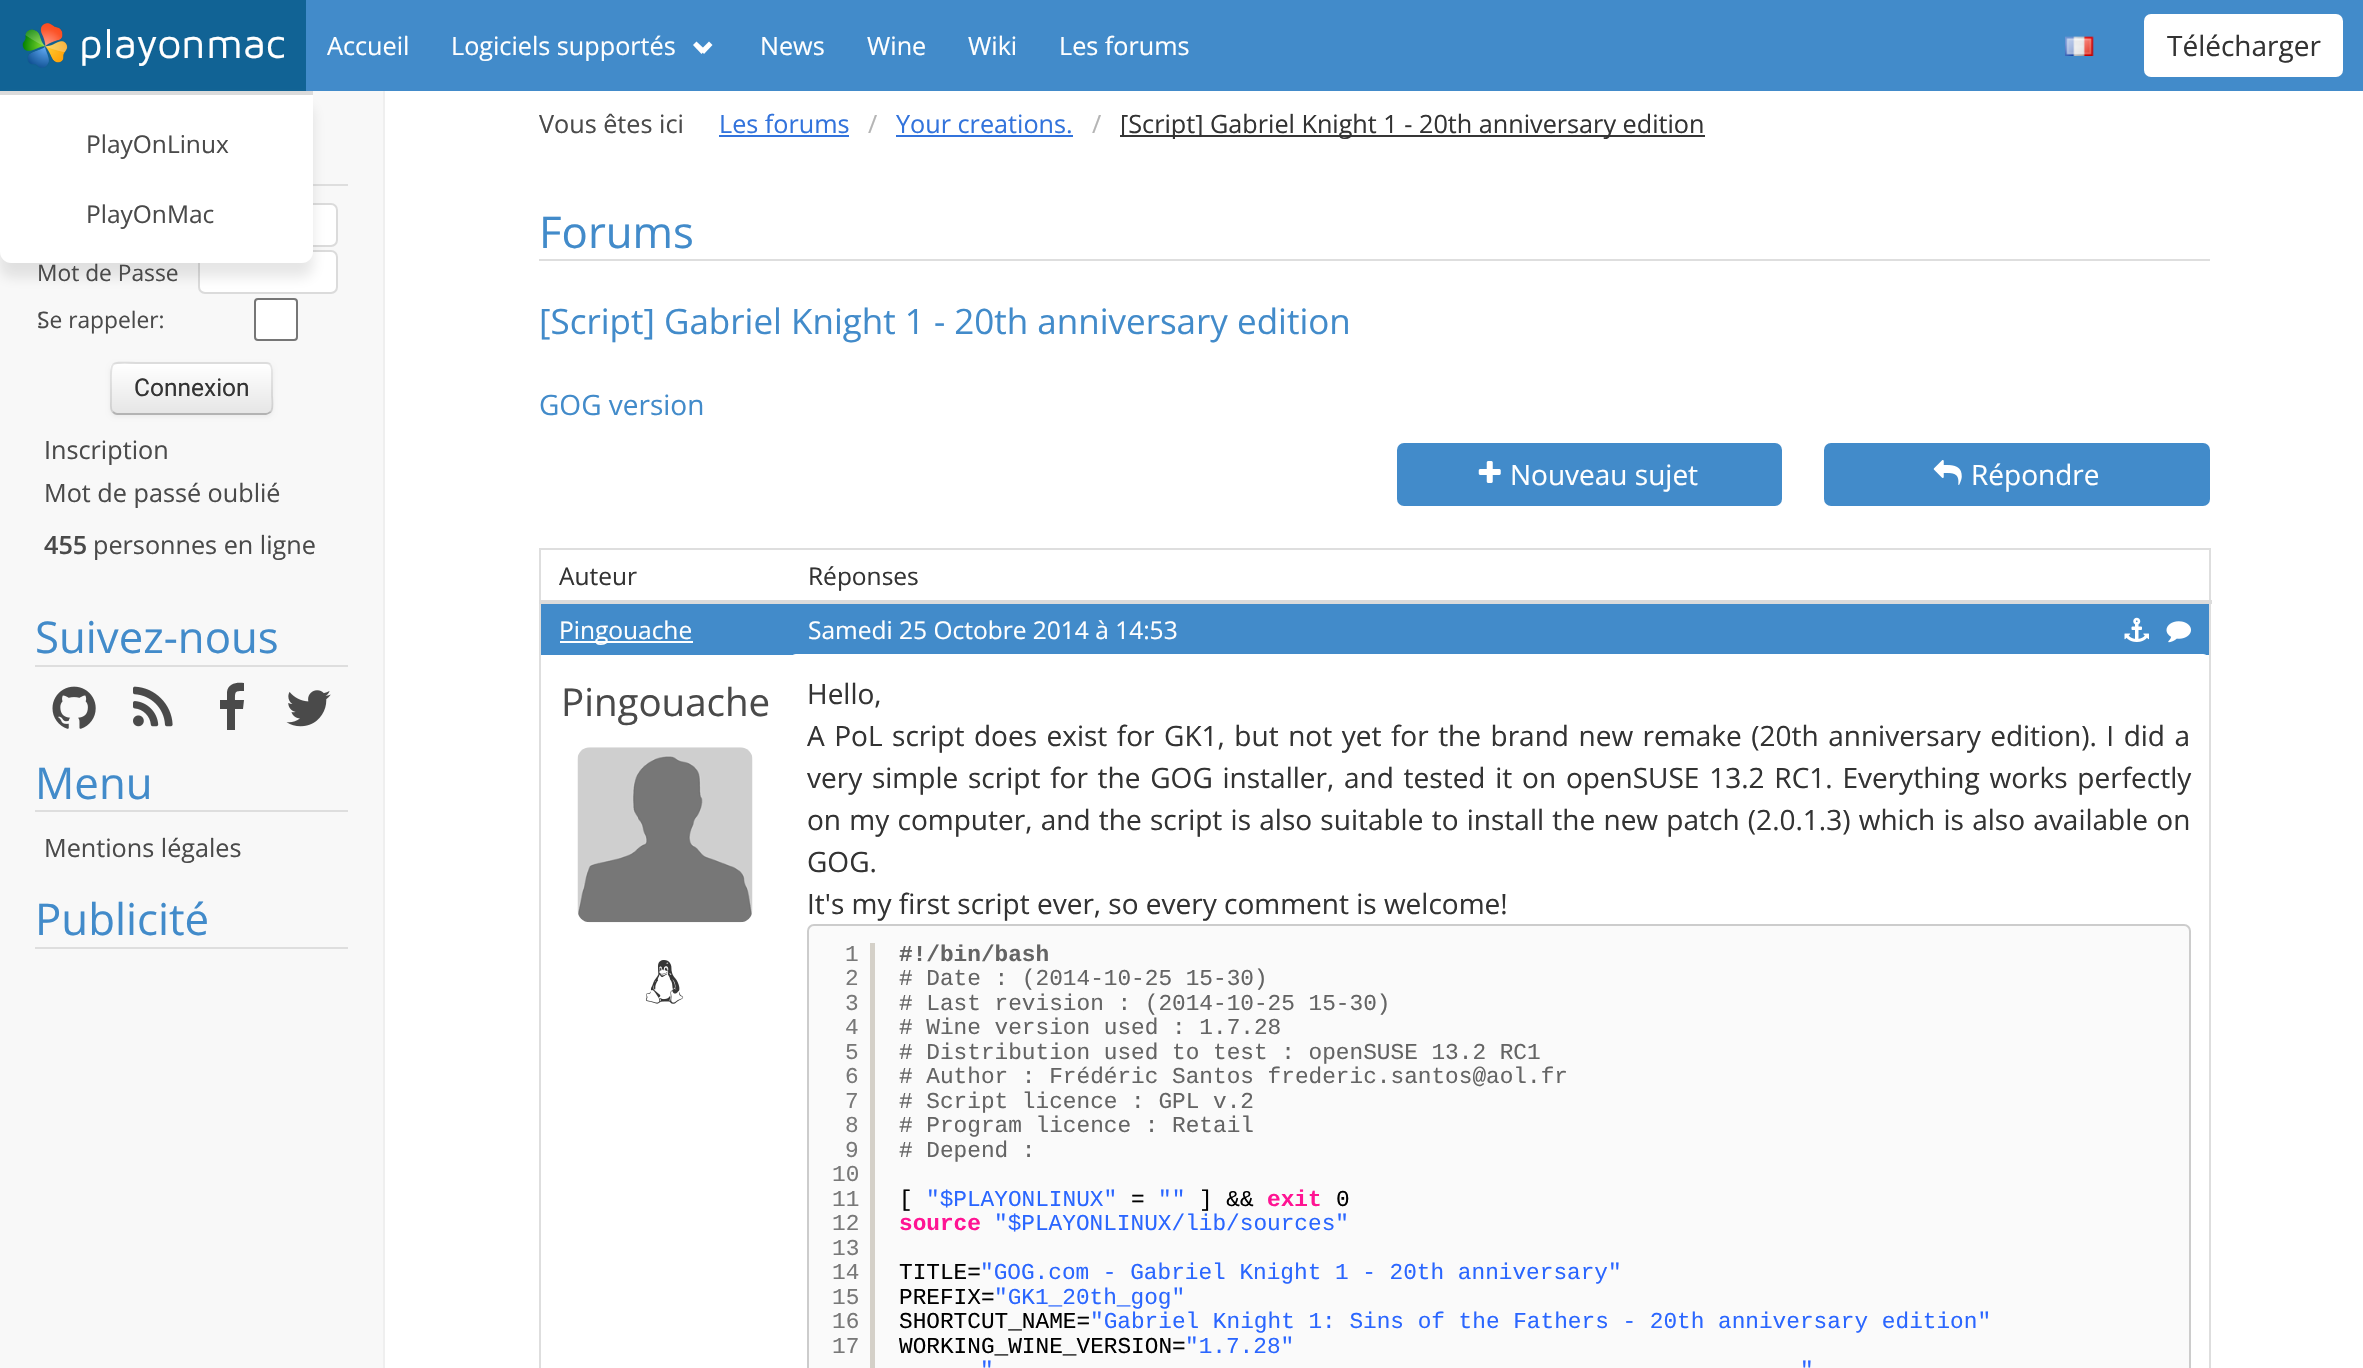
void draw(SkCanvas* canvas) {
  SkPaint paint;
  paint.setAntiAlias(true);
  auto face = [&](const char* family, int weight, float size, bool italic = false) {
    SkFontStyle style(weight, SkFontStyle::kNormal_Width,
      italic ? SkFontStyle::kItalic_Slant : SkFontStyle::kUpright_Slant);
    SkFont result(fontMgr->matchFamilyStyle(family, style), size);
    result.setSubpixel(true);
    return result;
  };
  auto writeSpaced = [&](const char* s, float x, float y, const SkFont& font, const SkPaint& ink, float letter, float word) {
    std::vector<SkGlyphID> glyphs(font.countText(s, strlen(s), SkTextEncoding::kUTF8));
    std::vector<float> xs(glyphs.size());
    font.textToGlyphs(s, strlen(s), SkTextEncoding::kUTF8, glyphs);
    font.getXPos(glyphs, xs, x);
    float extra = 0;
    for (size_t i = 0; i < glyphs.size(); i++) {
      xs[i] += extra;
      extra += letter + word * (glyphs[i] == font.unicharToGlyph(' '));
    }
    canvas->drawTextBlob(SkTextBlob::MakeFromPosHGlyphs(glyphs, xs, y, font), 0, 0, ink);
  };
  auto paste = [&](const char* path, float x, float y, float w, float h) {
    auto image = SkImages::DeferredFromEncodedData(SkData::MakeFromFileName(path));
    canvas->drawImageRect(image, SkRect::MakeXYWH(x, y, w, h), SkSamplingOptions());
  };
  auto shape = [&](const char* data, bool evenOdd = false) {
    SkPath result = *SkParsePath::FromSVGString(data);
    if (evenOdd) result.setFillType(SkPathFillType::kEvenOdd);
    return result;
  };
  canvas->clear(0xffffffff);
  paint.setColor(0xff428bca);
  canvas->drawRect(SkRect::MakeXYWH(306, 0, 2057, 91), paint);
  paint.setColor(0xff116395);
  canvas->drawRect(SkRect::MakeXYWH(0, 0, 306, 91), paint);
  paste("img/1.png", 22, 23, 46, 45);
  paint.setColor(0xfff8f8f8);
  canvas->drawRect(SkRect::MakeXYWH(0, 91, 383, 1277), paint);
  paint.setColor(0xffdedede);
  canvas->drawRect(SkRect::MakeXYWH(313, 184, 35, 2), paint);
  paint.setColor(0xffffffff);
  canvas->drawRoundRect(SkRect::MakeXYWH(199, 204, 138, 42), 6, 6, paint);
  paint.setStroke(true);
  paint.setStrokeWidth(2);
  paint.setColor(0xffdbdbdb);
  canvas->drawRoundRect(SkRect::MakeXYWH(199, 204, 138, 42), 6, 6, paint);
  paint.setStroke(false);
  paint.setColor(0xffffffff);
  canvas->drawRoundRect(SkRect::MakeXYWH(199, 251, 138, 42), 6, 6, paint);
  paint.setStroke(true);
  paint.setColor(0xffdbdbdb);
  canvas->drawRoundRect(SkRect::MakeXYWH(199, 251, 138, 42), 6, 6, paint);
  paint.setStroke(false);
  paint.setColor(0xffffffff);
  canvas->drawRoundRect(SkRect::MakeXYWH(255, 299, 42, 41), 3, 3, paint);
  paint.setStroke(true);
  paint.setColor(0xff767676);
  canvas->drawRoundRect(SkRect::MakeXYWH(255, 299, 42, 41), 3, 3, paint);
  paint.setStroke(false);
  paint.setColor(0x1a0a0a0a);
  paint.setMaskFilter(SkMaskFilter::MakeBlur(kNormal_SkBlurStyle, 7));
  canvas->drawRoundRect(SkRect::MakeXYWH(0, 105, 313, 172), 11, 11, paint);
  paint.setMaskFilter(nullptr);
  paint.setColor(0xffffffff);
  canvas->drawPath(shape("M0 91H313V252C313 258 308 263 302 263H11C5 263 0 258 0 252Z"), paint);
  paint.setColor(0xffdbdbdb);
  canvas->drawRect(SkRect::MakeXYWH(0, 91, 313, 4), paint);
  paint.setColor(0xffffffff);
  canvas->drawPath(shape("M700.5 50L709 41.5L712.5 45L704 54Z"), paint);
  canvas->drawPath(shape("M693 45L696.5 41.5L705.5 50L701.5 54Z"), paint);
  paste("img/2.png", 2065, 36, 29, 20);
  canvas->drawRoundRect(SkRect::MakeXYWH(2144, 14, 199, 63), 7, 7, paint);
  paint.setColor(0xffefefef);
  canvas->drawRect(SkRect::MakeXYWH(383, 91, 2, 1277), paint);
  paint.setColor(0x0d000000);
  paint.setMaskFilter(SkMaskFilter::MakeBlur(kNormal_SkBlurStyle, 2));
  canvas->drawRoundRect(SkRect::MakeXYWH(110, 364, 163, 53), 7, 7, paint);
  paint.setMaskFilter(nullptr);
  paint.setColor(0xfff5f5f5);
  canvas->drawRoundRect(SkRect::MakeXYWH(110, 362, 163, 53), 7, 7, paint);
  canvas->save();
  canvas->clipPath(shape("M117 362H266C270 362 273 365 273 369V408C273 412 270 415 266 415H117C113 415 110 412 110 408V369C110 365 113 362 117 362Z"), true);
  {
    const SkColor colors[] = {0xffffffff, 0xffe6e6e6};
    const float stops[] = {0, 1};
    const SkPoint ends[] = {{192, 364}, {192, 413}};
    paint.setShader(SkGradientShader::MakeLinear(ends, colors, stops, 2, SkTileMode::kClamp));
    paint.setAlpha(255);
  }
  canvas->drawRect(SkRect::MakeXYWH(110, 364, 163, 49), paint);
  canvas->restore();
  paint.setStroke(true);
  paint.setStrokeWidth(1.8f);
  paint.setShader(nullptr);
  paint.setColor(0xffb3b3b3);
  canvas->drawPath(shape("M270.5 412C269 413 267.5 414 266 414H117C115.5 414 114 413 113 412"), paint);
  paint.setColor(0x1a000000);
  canvas->drawPath(shape("M113 412C110 409.5 111 404.5 111 401.5V388.5C111 357.5 107.5 363 142 363H266C273 363 272 371 272 375.5V395C272 399 274 408.5 270.5 412"), paint);
  paint.setStroke(false);
  paint.setColor(0xffdedede);
  canvas->drawRect(SkRect::MakeXYWH(35, 665, 313, 2), paint);
  paste("img/3.png", 52, 686, 44, 43);
  paste("img/4.png", 133, 686, 40, 41);
  paint.setColor(0xff4a4a4a);
  canvas->drawPath(shape("M220 709V700H227V692C228 683 237 682 244 683V691C235 691 235 691 235 700H244L243 709H235V730H227V709Z"), paint);
  paste("img/5.png", 286, 690, 45, 37);
  {
    const struct { float x, y, w, h; SkColor color; } items[] = {
      {35, 810, 313, 2, 0xffdedede},
      {35, 947, 313, 2, 0xffdedede},
      {719, 135, 130, 2, 0xff3273dc},
      {896, 135, 177, 2, 0xff3273dc},
      {1120, 135, 585, 2, 0xff363636},
      {539, 259, 1671, 2, 0xffdedede},
    };
    for (auto [x, y, w, h, color] : items) {
      paint.setColor(color);
      canvas->drawRect(SkRect::MakeXYWH(x, y, w, h), paint);
    }
  }
  paint.setColor(0xff428bca);
  canvas->drawRoundRect(SkRect::MakeXYWH(1397, 443, 385, 63), 7, 7, paint);
  paste("img/6.png", 1478, 461, 23, 22);
  canvas->drawRoundRect(SkRect::MakeXYWH(1824, 443, 386, 63), 7, 7, paint);
  paste("img/7.png", 1933, 460, 29, 25);
  paint.setColor(0xffdedede);
  canvas->drawRect(SkRect::MakeXYWH(539, 548, 1671, 2), paint);
  paint.setColor(0xff428bca);
  canvas->drawRect(SkRect::MakeXYWH(541, 604, 1668, 51), paint);
  paint.setColor(0xffffffff);
  canvas->drawPath(shape("M796 654H2203C2207 654 2210 658 2210 662V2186C2210 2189 2207 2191 2203 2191H796C792 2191 789 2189 789 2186V662C789 658 792 654 796 654Z"), paint);
  {
    const struct { float x, y, w, h; SkColor color; } items[] = {
      {2209, 548, 2, 820, 0xffdedede},
      {539, 548, 2, 820, 0xffdedede},
      {539, 600, 1673, 4, 0xffdbdbdb},
      {560, 641, 133, 2, 0xffffffff},
    };
    for (auto [x, y, w, h, color] : items) {
      paint.setColor(color);
      canvas->drawRect(SkRect::MakeXYWH(x, y, w, h), paint);
    }
  }
  paste("img/8.png", 2124, 617, 25, 25);
  paste("img/9.png", 2166, 621, 25, 22);
  paste("img/10.png", 577, 747, 176, 176);
  paste("img/11.png", 645, 960, 39, 44);
  paint.setColor(0xfffafafa);
  canvas->drawRoundRect(SkRect::MakeXYWH(808, 925, 1382, 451), 6, 6, paint);
  paint.setStroke(true);
  paint.setStrokeWidth(2);
  paint.setColor(0xffcccccc);
  canvas->drawRoundRect(SkRect::MakeXYWH(808, 925, 1382, 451), 6, 6, paint);
  paint.setStroke(false);
  paint.setColor(0xffd4d0c8);
  canvas->drawRect(SkRect::MakeXYWH(870, 943, 5, 425), paint);
  auto f0 = face("Maven Pro", 400, 42);
  paint.setColor(0xffffffff);
  canvas->drawString("playonmac", 79, 58, f0, paint);
  auto f1 = face("Open Sans", 400, 24.5f);
  paint.setColor(0xff4a4a4a);
  canvas->drawString("PlayOnLinux", 86, 153, f1, paint);
  canvas->drawString("PlayOnMac", 86, 223, f1, paint);
  auto f2 = face("Open Sans", 400, 25.2f);
  paint.setColor(0xffffffff);
  {
    const struct { const char* s; float x, y; } items[] = {
      {"Accueil", 327, 55},
      {"Logiciels supportés", 451, 55},
      {"News", 760, 55},
      {"Wine", 867, 55},
      {"Wiki", 968, 55},
      {"Les forums", 1059, 55},
    };
    for (auto [s, x, y] : items) {
      canvas->drawString(s, x, y, f2, paint);
    }
  }
  auto f3 = face("Open Sans", 400, 28);
  paint.setColor(0xff333333);
  canvas->drawString("Télécharger", 2167, 56, f3, paint);
  auto f4 = face("Open Sans", 400, 22.75f);
  paint.setColor(0xff4a4a4a);
  {
    const struct { const char* s; float x, y; } items[] = {
      {"Mot de Passe", 37, 281},
      {":", 37, 325},
      {"Se rappeler:", 37, 328},
    };
    for (auto [s, x, y] : items) {
      canvas->drawString(s, x, y, f4, paint);
    }
  }
  auto f5 = face("Roboto", 400, 24.5f);
  paint.setColor(0xff333333);
  canvas->drawString("Connexion", 134, 396, f5, paint);
  paint.setColor(0xff4a4a4a);
  canvas->drawString("Inscription", 44, 459, f2, paint);
  canvas->drawString("Mot de passé oublié", 44, 502, f2, paint);
  auto f6 = face("Open Sans", 600, 25.2f);
  canvas->drawString("455", 44, 554, f6, paint);
  canvas->drawString("personnes en ligne", 93, 554, f2, paint);
  auto f7 = face("Open Sans", 400, 43.75f);
  paint.setColor(0xff428bca);
  canvas->drawString("Suivez-nous", 35, 653, f7, paint);
  canvas->drawString("Menu", 35, 799, f7, paint);
  paint.setColor(0xff4a4a4a);
  canvas->drawString("Mentions légales", 44, 857, f2, paint);
  paint.setColor(0xff428bca);
  canvas->drawString("Publicité", 35, 935, f7, paint);
  paint.setColor(0xff4a4a4a);
  canvas->drawString("Vous êtes ici", 539, 133, f2, paint);
  paint.setColor(0xff3273dc);
  canvas->drawString("Les forums", 719, 133, f2, paint);
  paint.setColor(0xffb5b5b5);
  canvas->drawString("/", 868, 133, f2, paint);
  paint.setColor(0xff3273dc);
  canvas->drawString("Your creations.", 896, 133, f2, paint);
  paint.setColor(0xffb5b5b5);
  canvas->drawString("/", 1092, 133, f2, paint);
  paint.setColor(0xff333333);
  canvas->drawString("[Script] Gabriel Knight 1 - 20th anniversary edition", 1120, 133, f2, paint);
  paint.setColor(0xff428bca);
  canvas->drawString("Forums", 539, 248, f7, paint);
  auto f8 = face("Open Sans", 400, 35);
  canvas->drawString("[Script] Gabriel Knight 1 - 20th anniversary edition", 539, 334, f8, paint);
  canvas->drawString("GOG version", 539, 415, f3, paint);
  paint.setColor(0xffffffff);
  canvas->drawString("Nouveau sujet", 1510, 485, f3, paint);
  canvas->drawString("Répondre", 1971, 485, f3, paint);
  paint.setColor(0xff333333);
  canvas->drawString("Auteur", 559, 585, f1, paint);
  canvas->drawString("Réponses", 808, 585, f1, paint);
  paint.setColor(0xffffffff);
  canvas->drawString("Pingouache", 559, 639, f1, paint);
  canvas->drawString("Samedi 25 Octobre 2014 à 14:53", 808, 639, f1, paint);
  auto f9 = face("Open Sans", 400, 38.5f);
  paint.setColor(0xff4a4a4a);
  canvas->drawString("Pingouache", 561, 716, f9, paint);
  paint.setColor(0xff333333);
  canvas->drawString("Hello,", 807, 704, f3, paint);
  writeSpaced("A PoL script does exist for GK1, but not yet for the brand new remake (20th anniversary edition). I did a", 807, 746, f3, paint, 0, 2.25f);
  writeSpaced("very simple script for the GOG installer, and tested it on openSUSE 13.2 RC1. Everything works perfectly", 807, 788, f3, paint, 0, 2.5f);
  writeSpaced("on my computer, and the script is also suitable to install the new patch (2.0.1.3) which is also available on", 807, 830, f3, paint, 0, 1);
  canvas->drawString("GOG.", 807, 872, f3, paint);
  canvas->drawString("It's my first script ever, so every comment is welcome!", 807, 914, f3, paint);
  auto f10 = face("Liberation Mono", 400, 22.75f);
  paint.setColor(0xff787878);
  {
    const struct { const char* s; float x, y; } items[] = {
      {"1", 845, 961},
      {"2", 845, 985},
      {"3", 845, 1010},
      {"4", 845, 1034},
      {"5", 845, 1059},
      {"6", 845, 1083},
      {"7", 845, 1108},
      {"8", 845, 1132},
      {"9", 845, 1157},
      {"10", 832, 1181},
      {"11", 832, 1206},
      {"12", 832, 1230},
      {"13", 832, 1255},
      {"14", 832, 1279},
      {"15", 832, 1304},
      {"16", 832, 1328},
      {"17", 832, 1353},
    };
    for (auto [s, x, y] : items) {
      canvas->drawString(s, x, y, f10, paint);
    }
  }
  auto f11 = face("Liberation Mono", 700, 22.75f);
  paint.setColor(0xff646464);
  canvas->drawString("#!/bin/bash", 899, 961, f11, paint);
  {
    const struct { const char* s; float x, y; } items[] = {
      {"# Date : (2014-10-25 15-30)", 899, 985},
      {"# Last revision : (2014-10-25 15-30)", 899, 1010},
      {"# Wine version used : 1.7.28", 899, 1034},
      {"# Distribution used to test : openSUSE 13.2 RC1", 899, 1059},
      {"# Author : Frédéric Santos frederic.santos@aol.fr", 899, 1083},
      {"# Script licence : GPL v.2", 899, 1108},
      {"# Program licence : Retail", 899, 1132},
      {"# Depend :", 899, 1157},
    };
    for (auto [s, x, y] : items) {
      canvas->drawString(s, x, y, f10, paint);
    }
  }
  paint.setColor(0xff000000);
  canvas->drawString("[", 899, 1206, f10, paint);
  paint.setColor(0xff2a66ff);
  canvas->drawString("\"$PLAYONLINUX\"", 926, 1206, f10, paint);
  paint.setColor(0xff000000);
  canvas->drawString("=", 1131, 1206, f10, paint);
  paint.setColor(0xff2a66ff);
  canvas->drawString("\"\"", 1158, 1206, f10, paint);
  paint.setColor(0xff000000);
  canvas->drawString("] &&", 1199, 1206, f10, paint);
  paint.setColor(0xffff1493);
  canvas->drawString("exit", 1267, 1206, f11, paint);
  paint.setColor(0xff000000);
  canvas->drawString("0", 1336, 1206, f10, paint);
  paint.setColor(0xffff1493);
  canvas->drawString("source", 899, 1230, f11, paint);
  paint.setColor(0xff2a66ff);
  canvas->drawString("\"$PLAYONLINUX/lib/sources\"", 994, 1230, f10, paint);
  paint.setColor(0xff000000);
  canvas->drawString("TITLE=", 899, 1279, f10, paint);
  paint.setColor(0xff2a66ff);
  canvas->drawString("\"GOG.com - Gabriel Knight 1 - 20th anniversary\"", 980, 1279, f10, paint);
  paint.setColor(0xff000000);
  canvas->drawString("PREFIX=", 899, 1304, f10, paint);
  paint.setColor(0xff2a66ff);
  canvas->drawString("\"GK1_20th_gog\"", 994, 1304, f10, paint);
  paint.setColor(0xff000000);
  canvas->drawString("SHORTCUT_NAME=", 899, 1328, f10, paint);
  paint.setColor(0xff2a66ff);
  canvas->drawString("\"Gabriel Knight 1: Sins of the Fathers - 20th anniversary edition\"", 1090, 1328, f10, paint);
  paint.setColor(0xff000000);
  canvas->drawString("WORKING_WINE_VERSION=", 899, 1353, f10, paint);
  paint.setColor(0xff2a66ff);
  {
    const struct { const char* s; float x, y; } items[] = {
      {"\"1.7.28\"", 1185, 1353},
      {"\"", 980, 1377},
      {"\"", 1800, 1377},
    };
    for (auto [s, x, y] : items) {
      canvas->drawString(s, x, y, f10, paint);
    }
  }
}
